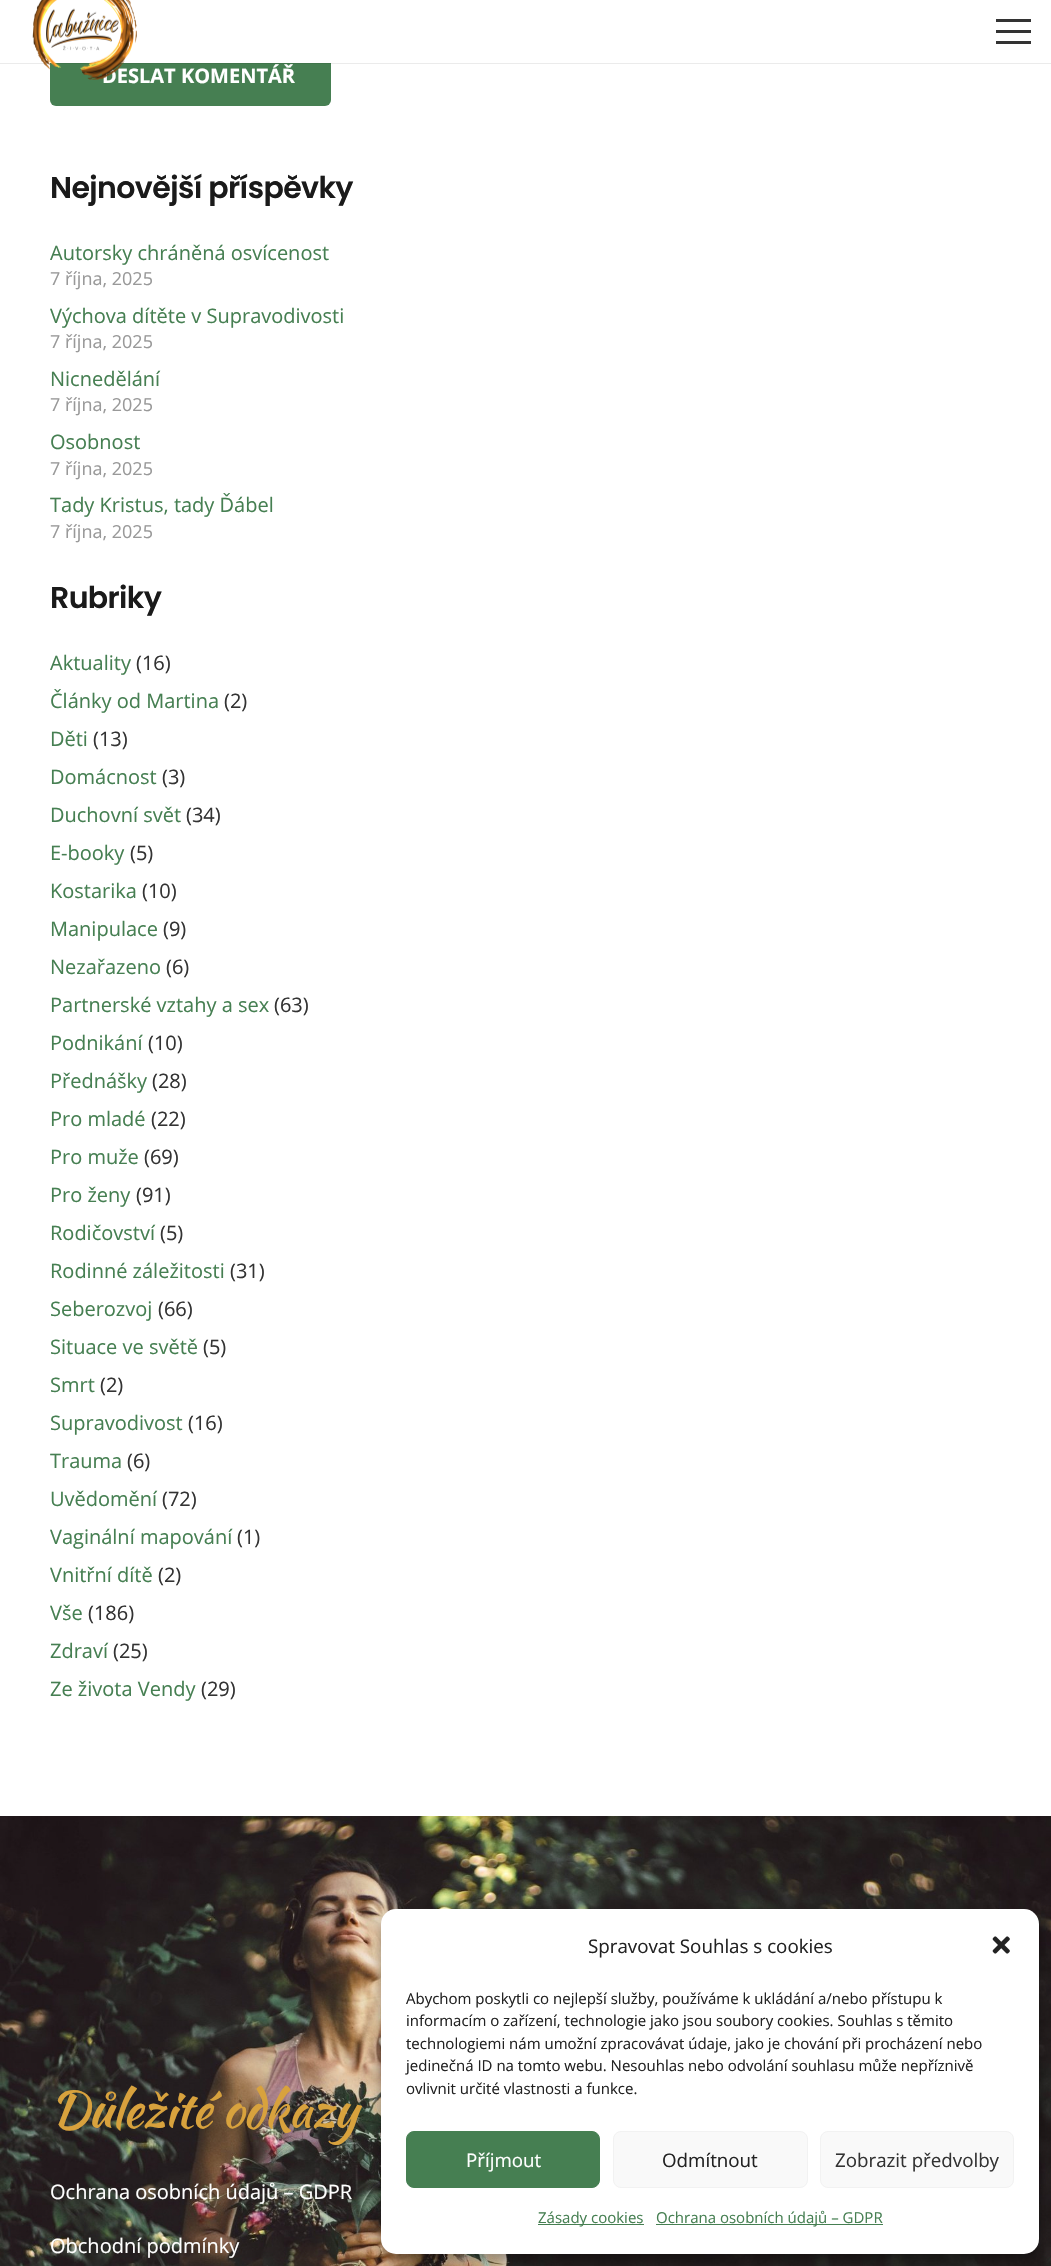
void draw(SkCanvas* canvas) {
  SkPaint paint;
  paint.setAntiAlias(true);
  auto face = [&](const char* family, int weight, float size, bool italic = false) {
    SkFontStyle style(weight, SkFontStyle::kNormal_Width,
      italic ? SkFontStyle::kItalic_Slant : SkFontStyle::kUpright_Slant);
    SkFont result(fontMgr->matchFamilyStyle(family, style), size);
    result.setSubpixel(true);
    return result;
  };
  auto writeSpaced = [&](const char* s, float x, float y, const SkFont& font, const SkPaint& ink, float letter, float word) {
    std::vector<SkGlyphID> glyphs(font.countText(s, strlen(s), SkTextEncoding::kUTF8));
    std::vector<float> xs(glyphs.size());
    font.textToGlyphs(s, strlen(s), SkTextEncoding::kUTF8, glyphs);
    font.getXPos(glyphs, xs, x);
    float extra = 0;
    for (size_t i = 0; i < glyphs.size(); i++) {
      xs[i] += extra;
      extra += letter + word * (glyphs[i] == font.unicharToGlyph(' '));
    }
    canvas->drawTextBlob(SkTextBlob::MakeFromPosHGlyphs(glyphs, xs, y, font), 0, 0, ink);
  };
  auto paste = [&](const char* path, float x, float y, float w, float h) {
    auto image = SkImages::DeferredFromEncodedData(SkData::MakeFromFileName(path));
    canvas->drawImageRect(image, SkRect::MakeXYWH(x, y, w, h), SkSamplingOptions());
  };
  canvas->clear(0xffffffff);
  paint.setColor(0xffebebeb);
  canvas->drawRect(SkRect::MakeXYWH(0, 63, 1051, 1), paint);
  paint.setColor(0xff467f52);
  canvas->drawRoundRect(SkRect::MakeXYWH(50, 46, 281, 60), 6, 6, paint);
  {
    const struct { float x, y, w, h; SkColor color; } items[] = {
      {50, 46, 281, 17, 0xffffffff},
      {996, 30, 35, 3, 0xff333333},
      {996, 19, 35, 3, 0xff333333},
      {996, 41, 35, 3, 0xff333333},
      {50, 63, 281, 1, 0xff40754b},
    };
    for (auto [x, y, w, h, color] : items) {
      paint.setColor(color);
      canvas->drawRect(SkRect::MakeXYWH(x, y, w, h), paint);
    }
  }
  paste("img/2.png", 0, 1816, 1051, 450);
  paint.setColor(0x3b000000);
  paint.setMaskFilter(SkMaskFilter::MakeBlur(kNormal_SkBlurStyle, 4));
  canvas->drawRoundRect(SkRect::MakeXYWH(381, 1916, 658, 345), 15, 15, paint);
  paint.setMaskFilter(nullptr);
  paint.setColor(0x30000000);
  paint.setMaskFilter(SkMaskFilter::MakeBlur(kNormal_SkBlurStyle, 12.5f));
  canvas->drawRoundRect(SkRect::MakeXYWH(381, 1921, 658, 345), 15, 15, paint);
  paint.setMaskFilter(nullptr);
  paint.setColor(0xffffffff);
  canvas->drawRoundRect(SkRect::MakeXYWH(381, 1909, 658, 345), 15, 15, paint);
  paste("img/3.png", 992, 1936, 18, 18);
  paint.setColor(0xff467f52);
  canvas->drawRoundRect(SkRect::MakeXYWH(406.5f, 2131.5f, 193, 56), 7.5f, 7.5f, paint);
  paint.setStroke(true);
  paint.setStrokeWidth(1);
  canvas->drawRoundRect(SkRect::MakeXYWH(406.5f, 2131.5f, 193, 56), 7.5f, 7.5f, paint);
  paint.setStroke(false);
  paint.setColor(0xfff9f9f9);
  canvas->drawRoundRect(SkRect::MakeXYWH(613.5f, 2131.5f, 194, 56), 7.5f, 7.5f, paint);
  paint.setStroke(true);
  paint.setColor(0xfff2f2f2);
  canvas->drawRoundRect(SkRect::MakeXYWH(613.5f, 2131.5f, 194, 56), 7.5f, 7.5f, paint);
  paint.setStroke(false);
  paint.setColor(0xfff9f9f9);
  canvas->drawRoundRect(SkRect::MakeXYWH(820.5f, 2131.5f, 193, 56), 7.5f, 7.5f, paint);
  paint.setStroke(true);
  paint.setColor(0xfff2f2f2);
  canvas->drawRoundRect(SkRect::MakeXYWH(820.5f, 2131.5f, 193, 56), 7.5f, 7.5f, paint);
  paint.setStroke(false);
  paint.setColor(0xff467f52);
  canvas->drawRect(SkRect::MakeXYWH(538, 2224, 106, 1), paint);
  canvas->drawRect(SkRect::MakeXYWH(656, 2224, 227, 1), paint);
  auto f0 = face("Open Sans", 700, 20);
  paint.setColor(0xffffffff);
  canvas->drawString("DESLAT KOMENTÁŘ", 102, 83, f0, paint);
  paste("img/1.png", 32, 0, 105, 80);
  auto f1 = face("Poppins", 600, 30);
  paint.setColor(0xff1a1a1a);
  writeSpaced("Nejnovější příspěvky", 50, 198, f1, paint, -0.6f, 0);
  auto f2 = face("Open Sans", 400, 20);
  paint.setColor(0xff467f52);
  canvas->drawString("Autorsky chráněná osvícenost", 50, 260, f2, paint);
  auto f3 = face("Open Sans", 400, 18);
  paint.setColor(0xff999999);
  canvas->drawString("7 října, 2025", 50, 285, f3, paint);
  paint.setColor(0xff467f52);
  canvas->drawString("Výchova dítěte v Supravodivosti", 50, 323, f2, paint);
  paint.setColor(0xff999999);
  canvas->drawString("7 října, 2025", 50, 348, f3, paint);
  paint.setColor(0xff467f52);
  canvas->drawString("Nicnedělání", 50, 386, f2, paint);
  paint.setColor(0xff999999);
  canvas->drawString("7 října, 2025", 50, 411, f3, paint);
  paint.setColor(0xff467f52);
  canvas->drawString("Osobnost", 50, 449, f2, paint);
  paint.setColor(0xff999999);
  canvas->drawString("7 října, 2025", 50, 475, f3, paint);
  paint.setColor(0xff467f52);
  canvas->drawString("Tady Kristus, tady Ďábel", 50, 512, f2, paint);
  paint.setColor(0xff999999);
  canvas->drawString("7 října, 2025", 50, 538, f3, paint);
  paint.setColor(0xff1a1a1a);
  writeSpaced("Rubriky", 50, 608, f1, paint, -0.6f, 0);
  paint.setColor(0xff467f52);
  canvas->drawString("Aktuality", 50, 670, f2, paint);
  paint.setColor(0xff333333);
  canvas->drawString("(16)", 136, 670, f2, paint);
  paint.setColor(0xff467f52);
  canvas->drawString("Články od Martina", 50, 708, f2, paint);
  paint.setColor(0xff333333);
  canvas->drawString("(2)", 224, 708, f2, paint);
  paint.setColor(0xff467f52);
  canvas->drawString("Děti", 50, 746, f2, paint);
  paint.setColor(0xff333333);
  canvas->drawString("(13)", 93, 746, f2, paint);
  paint.setColor(0xff467f52);
  canvas->drawString("Domácnost", 50, 784, f2, paint);
  paint.setColor(0xff333333);
  canvas->drawString("(3)", 162, 784, f2, paint);
  paint.setColor(0xff467f52);
  canvas->drawString("Duchovní svět", 50, 822, f2, paint);
  paint.setColor(0xff333333);
  canvas->drawString("(34)", 186, 822, f2, paint);
  paint.setColor(0xff467f52);
  canvas->drawString("E-booky", 50, 860, f2, paint);
  paint.setColor(0xff333333);
  canvas->drawString("(5)", 130, 860, f2, paint);
  paint.setColor(0xff467f52);
  canvas->drawString("Kostarika", 50, 898, f2, paint);
  paint.setColor(0xff333333);
  canvas->drawString("(10)", 142, 898, f2, paint);
  paint.setColor(0xff467f52);
  canvas->drawString("Manipulace", 50, 936, f2, paint);
  paint.setColor(0xff333333);
  canvas->drawString("(9)", 163, 936, f2, paint);
  paint.setColor(0xff467f52);
  canvas->drawString("Nezařazeno", 50, 974, f2, paint);
  paint.setColor(0xff333333);
  canvas->drawString("(6)", 166, 974, f2, paint);
  paint.setColor(0xff467f52);
  canvas->drawString("Partnerské vztahy a sex", 50, 1012, f2, paint);
  paint.setColor(0xff333333);
  canvas->drawString("(63)", 274, 1012, f2, paint);
  paint.setColor(0xff467f52);
  canvas->drawString("Podnikání", 50, 1050, f2, paint);
  paint.setColor(0xff333333);
  canvas->drawString("(10)", 148, 1050, f2, paint);
  paint.setColor(0xff467f52);
  canvas->drawString("Přednášky", 50, 1088, f2, paint);
  paint.setColor(0xff333333);
  canvas->drawString("(28)", 152, 1088, f2, paint);
  paint.setColor(0xff467f52);
  canvas->drawString("Pro mladé", 50, 1126, f2, paint);
  paint.setColor(0xff333333);
  canvas->drawString("(22)", 151, 1126, f2, paint);
  paint.setColor(0xff467f52);
  canvas->drawString("Pro muže", 50, 1164, f2, paint);
  paint.setColor(0xff333333);
  canvas->drawString("(69)", 144, 1164, f2, paint);
  paint.setColor(0xff467f52);
  canvas->drawString("Pro ženy", 50, 1202, f2, paint);
  paint.setColor(0xff333333);
  canvas->drawString("(91)", 136, 1202, f2, paint);
  paint.setColor(0xff467f52);
  canvas->drawString("Rodičovství", 50, 1240, f2, paint);
  paint.setColor(0xff333333);
  canvas->drawString("(5)", 160, 1240, f2, paint);
  paint.setColor(0xff467f52);
  canvas->drawString("Rodinné záležitosti", 50, 1278, f2, paint);
  paint.setColor(0xff333333);
  canvas->drawString("(31)", 230, 1278, f2, paint);
  paint.setColor(0xff467f52);
  canvas->drawString("Seberozvoj", 50, 1316, f2, paint);
  paint.setColor(0xff333333);
  canvas->drawString("(66)", 158, 1316, f2, paint);
  paint.setColor(0xff467f52);
  canvas->drawString("Situace ve světě", 50, 1354, f2, paint);
  paint.setColor(0xff333333);
  canvas->drawString("(5)", 203, 1354, f2, paint);
  paint.setColor(0xff467f52);
  canvas->drawString("Smrt", 50, 1392, f2, paint);
  paint.setColor(0xff333333);
  canvas->drawString("(2)", 100, 1392, f2, paint);
  paint.setColor(0xff467f52);
  canvas->drawString("Supravodivost", 50, 1430, f2, paint);
  paint.setColor(0xff333333);
  canvas->drawString("(16)", 188, 1430, f2, paint);
  paint.setColor(0xff467f52);
  canvas->drawString("Trauma", 50, 1468, f2, paint);
  paint.setColor(0xff333333);
  canvas->drawString("(6)", 127, 1468, f2, paint);
  paint.setColor(0xff467f52);
  canvas->drawString("Uvědomění", 50, 1506, f2, paint);
  paint.setColor(0xff333333);
  canvas->drawString("(72)", 162, 1506, f2, paint);
  paint.setColor(0xff467f52);
  canvas->drawString("Vaginální mapování", 50, 1544, f2, paint);
  paint.setColor(0xff333333);
  canvas->drawString("(1)", 237, 1544, f2, paint);
  paint.setColor(0xff467f52);
  canvas->drawString("Vnitřní dítě", 50, 1582, f2, paint);
  paint.setColor(0xff333333);
  canvas->drawString("(2)", 158, 1582, f2, paint);
  paint.setColor(0xff467f52);
  canvas->drawString("Vše", 50, 1620, f2, paint);
  paint.setColor(0xff333333);
  canvas->drawString("(186)", 88, 1620, f2, paint);
  paint.setColor(0xff467f52);
  canvas->drawString("Zdraví", 50, 1658, f2, paint);
  paint.setColor(0xff333333);
  canvas->drawString("(25)", 113, 1658, f2, paint);
  paint.setColor(0xff467f52);
  canvas->drawString("Ze života Vendy", 50, 1696, f2, paint);
  paint.setColor(0xff333333);
  canvas->drawString("(29)", 201, 1696, f2, paint);
  auto f4 = face("Kaushan Script", 400, 50);
  paint.setColor(0xffd8a23d);
  writeSpaced("Důležité odkazy", 50, 2127, f4, paint, -1, 0);
  paint.setColor(0xffffffff);
  canvas->drawString("Ochrana osobních údajů – GDPR", 50, 2199, f2, paint);
  canvas->drawString("Obchodní podmínky", 50, 2253, f2, paint);
  auto f5 = face("Open Sans", 400, 18.75f);
  paint.setColor(0xff222222);
  canvas->drawString("Spravovat Souhlas s cookies", 588, 1953, f5, paint);
  auto f6 = face("Open Sans", 400, 15);
  {
    const struct { const char* s; float x, y; } items[] = {
      {"Abychom poskytli co nejlepší služby, používáme k ukládání a/nebo přístupu k", 406, 2004},
      {"informacím o zařízení, technologie jako jsou soubory cookies. Souhlas s těmito", 406, 2026},
      {"technologiemi nám umožní zpracovávat údaje, jako je chování při procházení nebo", 406, 2049},
      {"jedinečná ID na tomto webu. Nesouhlas nebo odvolání souhlasu může nepříznivě", 406, 2071},
      {"ovlivnit určité vlastnosti a funkce.", 406, 2094},
    };
    for (auto [s, x, y] : items) {
      canvas->drawString(s, x, y, f6, paint);
    }
  }
  paint.setColor(0xffffffff);
  canvas->drawString("Příjmout", 466, 2167, f5, paint);
  paint.setColor(0xff222222);
  canvas->drawString("Odmítnout", 662, 2167, f5, paint);
  paint.setColor(0xff333333);
  canvas->drawString("Zobrazit předvolby", 835, 2167, f5, paint);
  paint.setColor(0xff467f52);
  canvas->drawString("Zásady cookies", 538, 2223, f6, paint);
  canvas->drawString("Ochrana osobních údajů – GDPR", 656, 2223, f6, paint);
}
